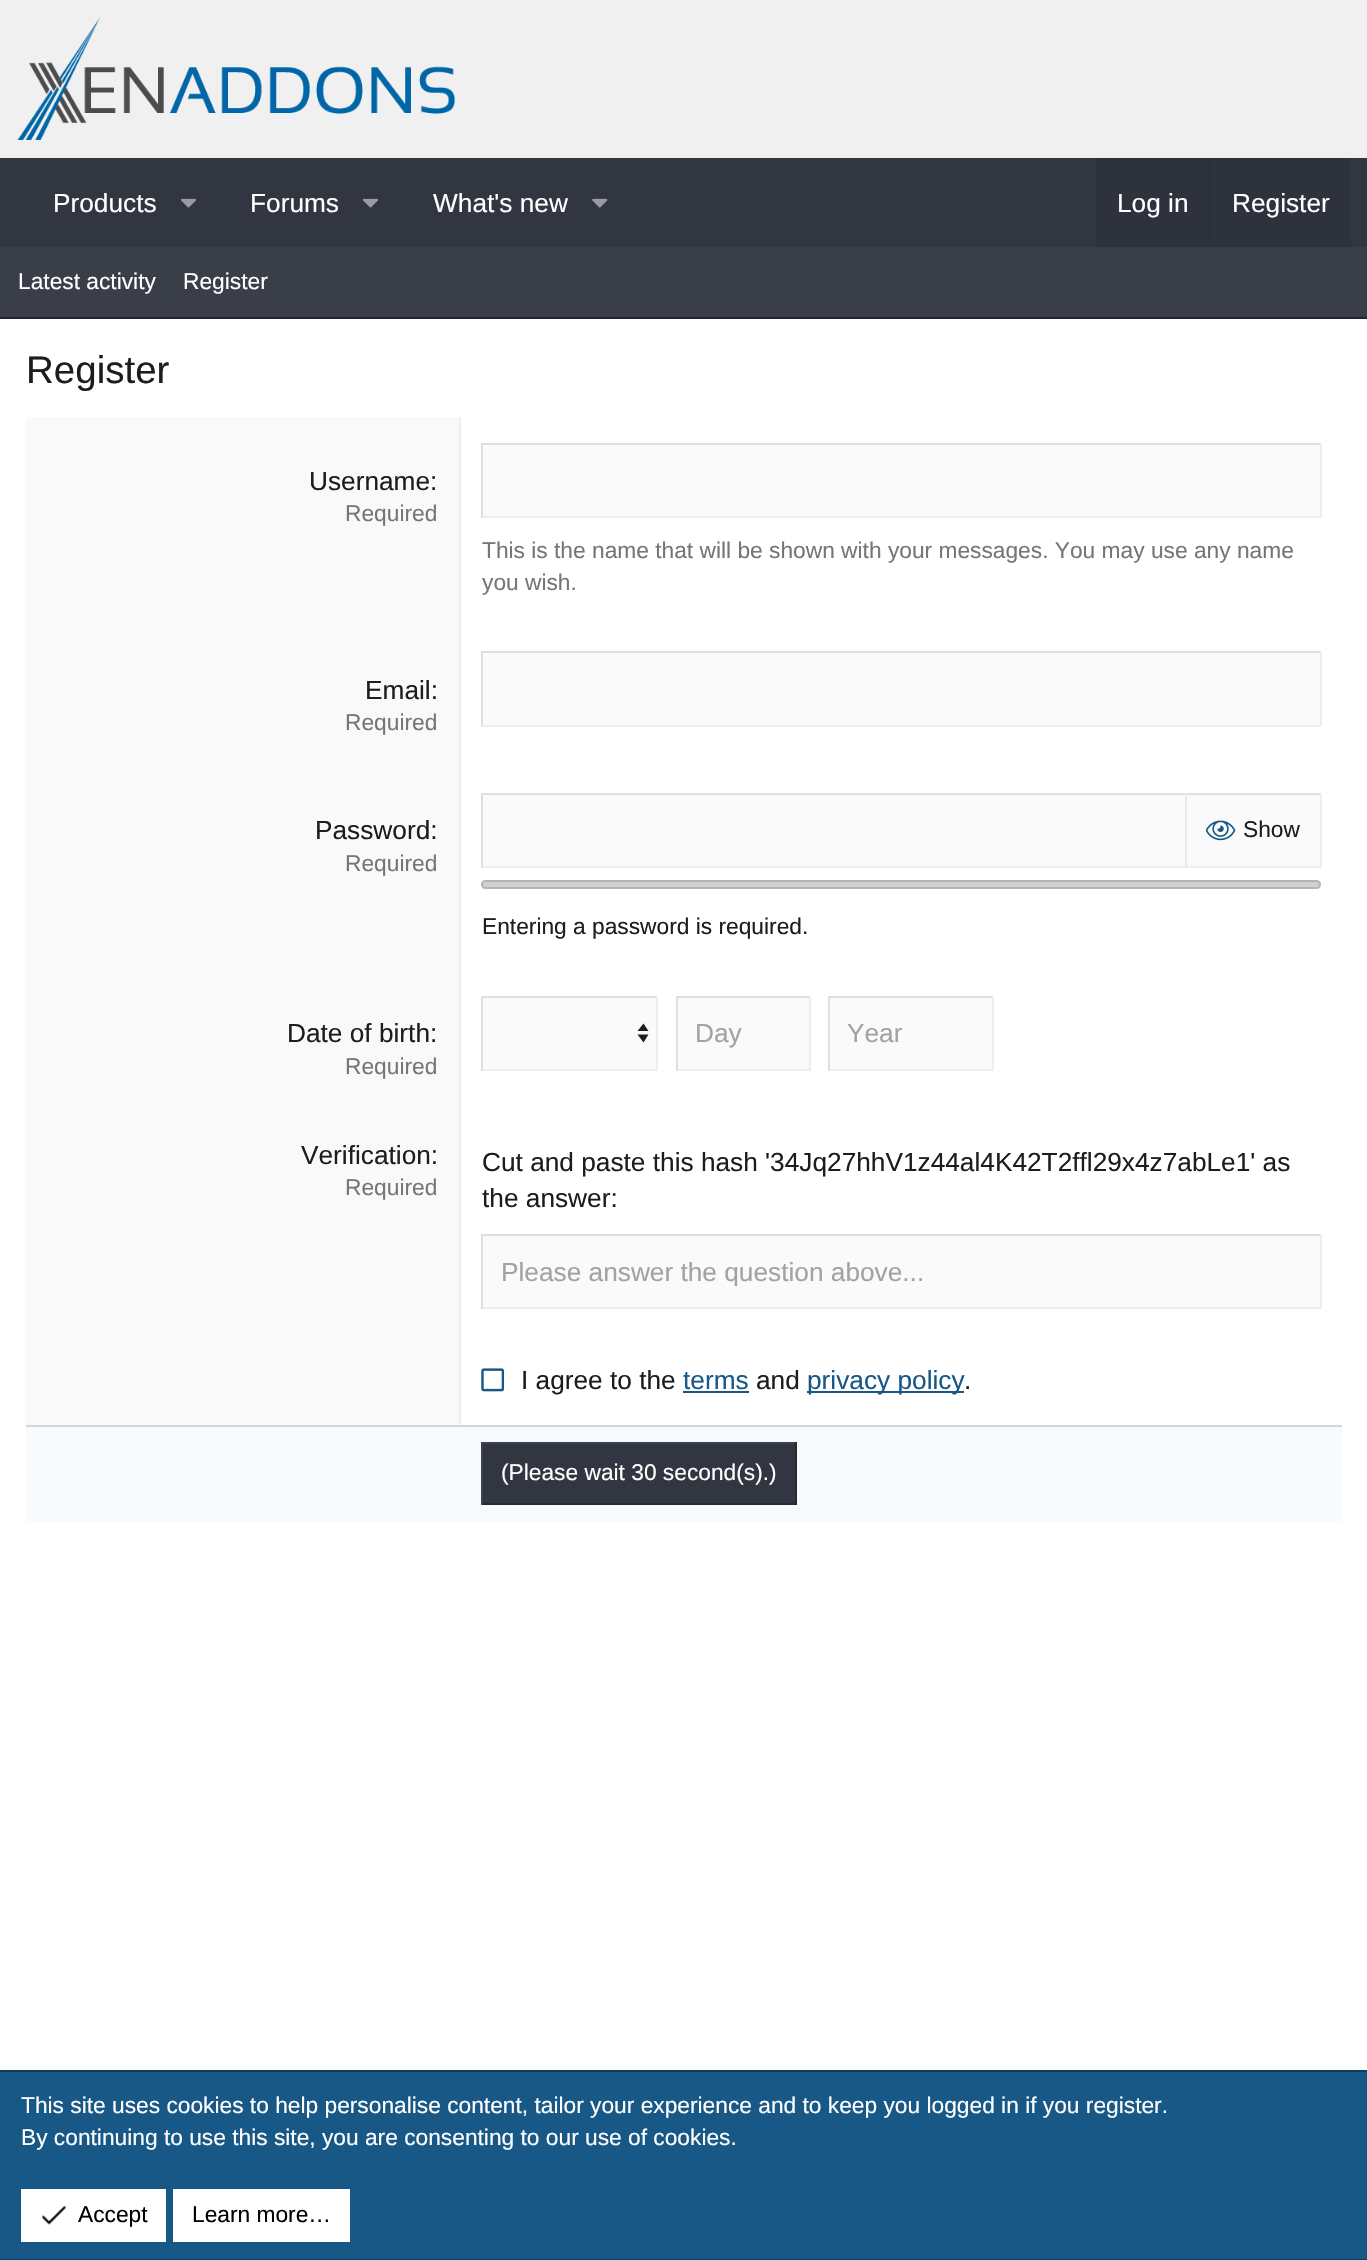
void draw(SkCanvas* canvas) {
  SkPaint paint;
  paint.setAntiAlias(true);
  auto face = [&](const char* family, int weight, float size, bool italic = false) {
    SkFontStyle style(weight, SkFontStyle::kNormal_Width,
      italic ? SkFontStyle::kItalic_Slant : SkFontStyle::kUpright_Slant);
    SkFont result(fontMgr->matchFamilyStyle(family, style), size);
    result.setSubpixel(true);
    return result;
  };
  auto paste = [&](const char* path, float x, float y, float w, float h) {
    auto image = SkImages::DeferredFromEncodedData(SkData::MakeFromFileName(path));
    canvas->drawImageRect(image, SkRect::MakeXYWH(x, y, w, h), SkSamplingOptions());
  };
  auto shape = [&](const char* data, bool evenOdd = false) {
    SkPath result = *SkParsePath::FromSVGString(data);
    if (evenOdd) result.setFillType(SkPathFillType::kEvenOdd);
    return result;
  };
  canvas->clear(0xfff0f0f0);
  paste("img/1.png", 17, 17, 438, 123);
  paint.setColor(0xff313641);
  canvas->drawRect(SkRect::MakeXYWH(0, 158, 1367, 89), paint);
  paste("img/2.png", 180, 198, 16, 10);
  paste("img/2.png", 362, 198, 16, 10);
  paste("img/3.png", 592, 198, 16, 10);
  {
    const struct { float x, y, w, h; SkColor color; } items[] = {
      {1096, 158, 255, 89, 0xff2e323c},
      {1209, 158, 2, 89, 0xff2b2f37},
      {0, 247, 1367, 70, 0xff393e49},
      {0, 317, 1367, 2, 0xff23262c},
      {0, 319, 1367, 1751, 0xffffffff},
      {26, 417, 433, 1008, 0xfff9f9f9},
      {459, 417, 2, 1008, 0xffeeeeee},
      {483, 445, 837, 71, 0xfffafafa},
      {481, 443, 840, 2, 0xffdfdfdf},
      {1320, 443, 2, 75, 0xffeeeeee},
      {481, 516, 840, 2, 0xffeeeeee},
      {481, 443, 2, 75, 0xffdfdfdf},
      {483, 653, 837, 72, 0xfffafafa},
      {481, 651, 840, 2, 0xffdfdfdf},
      {1320, 651, 2, 75, 0xffeeeeee},
      {481, 725, 840, 2, 0xffeeeeee},
      {481, 651, 2, 75, 0xffdfdfdf},
      {483, 795, 702, 71, 0xfffafafa},
      {481, 793, 840, 2, 0xffdfdfdf},
      {481, 866, 704, 2, 0xffeeeeee},
      {481, 793, 2, 75, 0xffdfdfdf},
      {1187, 795, 133, 71, 0xfffafafa},
      {1320, 793, 2, 75, 0xffeeeeee},
      {1185, 866, 136, 2, 0xffeeeeee},
      {1185, 793, 2, 75, 0xffe9e9e9},
    };
    for (auto [x, y, w, h, color] : items) {
      paint.setColor(color);
      canvas->drawRect(SkRect::MakeXYWH(x, y, w, h), paint);
    }
  }
  paste("img/4.png", 1206, 820, 30, 21);
  paint.setColor(0xffd0d0d0);
  canvas->drawRoundRect(SkRect::MakeXYWH(481, 880, 840, 9), 4.5f, 4.5f, paint);
  paint.setStroke(true);
  paint.setStrokeWidth(2);
  paint.setColor(0x4d767676);
  canvas->drawRoundRect(SkRect::MakeXYWH(482, 881, 838, 7), 3.5f, 3.5f, paint);
  paint.setStroke(false);
  paint.setColor(0xfffafafa);
  canvas->drawRect(SkRect::MakeXYWH(483, 998, 173, 71), paint);
  paint.setColor(0xff1d1d1d);
  canvas->drawPath(shape("M637.5 1031L643.5 1023.5L648.5 1031M648.5 1034.5L643.5 1042.5L637.5 1034.5"), paint);
  {
    const struct { float x, y, w, h; SkColor color; } items[] = {
      {481, 996, 177, 2, 0xffdfdfdf},
      {656, 996, 2, 75, 0xffeeeeee},
      {481, 1069, 177, 2, 0xffeeeeee},
      {481, 996, 2, 75, 0xffdfdfdf},
      {678, 998, 131, 71, 0xfffafafa},
      {676, 996, 134, 2, 0xffdfdfdf},
      {809, 996, 2, 75, 0xffeeeeee},
      {676, 1069, 134, 2, 0xffeeeeee},
      {676, 996, 2, 75, 0xffdfdfdf},
      {830, 998, 162, 71, 0xfffafafa},
      {828, 996, 166, 2, 0xffdfdfdf},
      {992, 996, 2, 75, 0xffeeeeee},
      {828, 1069, 166, 2, 0xffeeeeee},
      {828, 996, 2, 75, 0xffdfdfdf},
      {483, 1236, 837, 71, 0xfffafafa},
      {481, 1234, 840, 2, 0xffdfdfdf},
      {1320, 1234, 2, 75, 0xffeeeeee},
      {481, 1307, 840, 2, 0xffeeeeee},
      {481, 1234, 2, 75, 0xffdfdfdf},
    };
    for (auto [x, y, w, h, color] : items) {
      paint.setColor(color);
      canvas->drawRect(SkRect::MakeXYWH(x, y, w, h), paint);
    }
  }
  paste("img/5.png", 481, 1368, 23, 24);
  {
    const struct { float x, y, w, h; SkColor color; } items[] = {
      {683, 1391, 66, 2, 0xff185886},
      {807, 1391, 157, 2, 0xff185886},
      {26, 1427, 1316, 96, 0xfff7fbfd},
      {26, 1425, 1316, 2, 0xffd5d5d5},
      {483, 1444, 312, 59, 0xff313641},
      {481, 1442, 315, 2, 0xff3c4250},
      {795, 1442, 2, 63, 0xff262a32},
      {481, 1503, 315, 2, 0xff262a32},
      {481, 1442, 2, 63, 0xff3c4250},
      {0, 2072, 1367, 187, 0xff185886},
      {0, 2070, 1367, 2, 0xff103c5b},
      {0, 2259, 1367, 1, 0xff103c5b},
      {21, 2189, 145, 53, 0xffffffff},
    };
    for (auto [x, y, w, h, color] : items) {
      paint.setColor(color);
      canvas->drawRect(SkRect::MakeXYWH(x, y, w, h), paint);
    }
  }
  paste("img/6.png", 42, 2205, 25, 20);
  canvas->drawRect(SkRect::MakeXYWH(173, 2189, 177, 53), paint);
  auto f0 = face("Liberation Sans", 400, 26.25f);
  {
    const struct { const char* s; float x, y; } items[] = {
      {"Products", 53, 212},
      {"Forums", 250, 212},
      {"What's new", 433, 212},
      {"Log in", 1117, 212},
      {"Register", 1232, 212},
    };
    for (auto [s, x, y] : items) {
      canvas->drawString(s, x, y, f0, paint);
    }
  }
  auto f1 = face("Liberation Sans", 400, 22.75f);
  canvas->drawString("Latest activity", 18, 289, f1, paint);
  canvas->drawString("Register", 183, 289, f1, paint);
  auto f2 = face("Liberation Sans", 400, 38.5f);
  paint.setColor(0xff1d1d1d);
  canvas->drawString("Register", 26, 383, f2, paint);
  canvas->drawString("Username:", 309, 490, f0, paint);
  paint.setColor(0xff767676);
  {
    const struct { const char* s; float x, y; } items[] = {
      {"Required", 345, 521},
      {"This is the name that will be shown with your messages. You may use any name", 482, 558},
      {"you wish.", 482, 590},
    };
    for (auto [s, x, y] : items) {
      canvas->drawString(s, x, y, f1, paint);
    }
  }
  paint.setColor(0xff1d1d1d);
  canvas->drawString("Email:", 365, 699, f0, paint);
  paint.setColor(0xff767676);
  canvas->drawString("Required", 345, 730, f1, paint);
  paint.setColor(0xff1d1d1d);
  canvas->drawString("Password:", 315, 839, f0, paint);
  paint.setColor(0xff767676);
  canvas->drawString("Required", 345, 871, f1, paint);
  paint.setColor(0xff1d1d1d);
  canvas->drawString("Show", 1243, 837, f1, paint);
  canvas->drawString("Entering a password is required.", 482, 934, f1, paint);
  canvas->drawString("Date of birth:", 287, 1042, f0, paint);
  paint.setColor(0xff767676);
  canvas->drawString("Required", 345, 1074, f1, paint);
  paint.setColor(0xffa2a2a2);
  canvas->drawString("Day", 695, 1042, f0, paint);
  canvas->drawString("Year", 847, 1042, f0, paint);
  paint.setColor(0xff1d1d1d);
  canvas->drawString("Verification:", 301, 1164, f0, paint);
  paint.setColor(0xff767676);
  canvas->drawString("Required", 345, 1195, f1, paint);
  paint.setColor(0xff1d1d1d);
  canvas->drawString("Cut and paste this hash '34Jq27hhV1z44al4K42T2ffl29x4z7abLe1' as", 482, 1171, f0, paint);
  canvas->drawString("the answer:", 482, 1207, f0, paint);
  canvas->save();
  canvas->clipRect(SkRect::MakeXYWH(501, 1257, 801, 29));
  paint.setColor(0xffa2a2a2);
  canvas->drawString("Please answer the question above...", 501, 1281, f0, paint);
  canvas->restore();
  paint.setColor(0xff1d1d1d);
  canvas->drawString("I agree to the", 521, 1389, f0, paint);
  paint.setColor(0xff185886);
  canvas->drawString("terms", 683, 1389, f0, paint);
  paint.setColor(0xff1d1d1d);
  canvas->drawString("and", 756, 1389, f0, paint);
  paint.setColor(0xff185886);
  canvas->drawString("privacy policy", 807, 1389, f0, paint);
  paint.setColor(0xff1d1d1d);
  canvas->drawString(".", 964, 1389, f0, paint);
  paint.setColor(0xffffffff);
  {
    const struct { const char* s; float x, y; } items[] = {
      {"(Please wait 30 second(s).)", 501, 1480},
      {"This site uses cookies to help personalise content, tailor your experience and to keep you logged in if you register.", 21, 2113},
      {"By continuing to use this site, you are consenting to our use of cookies.", 21, 2145},
    };
    for (auto [s, x, y] : items) {
      canvas->drawString(s, x, y, f1, paint);
    }
  }
  paint.setColor(0xff000000);
  canvas->drawString("Accept", 78, 2222, f1, paint);
  canvas->drawString("Learn more…", 192, 2222, f1, paint);
}
